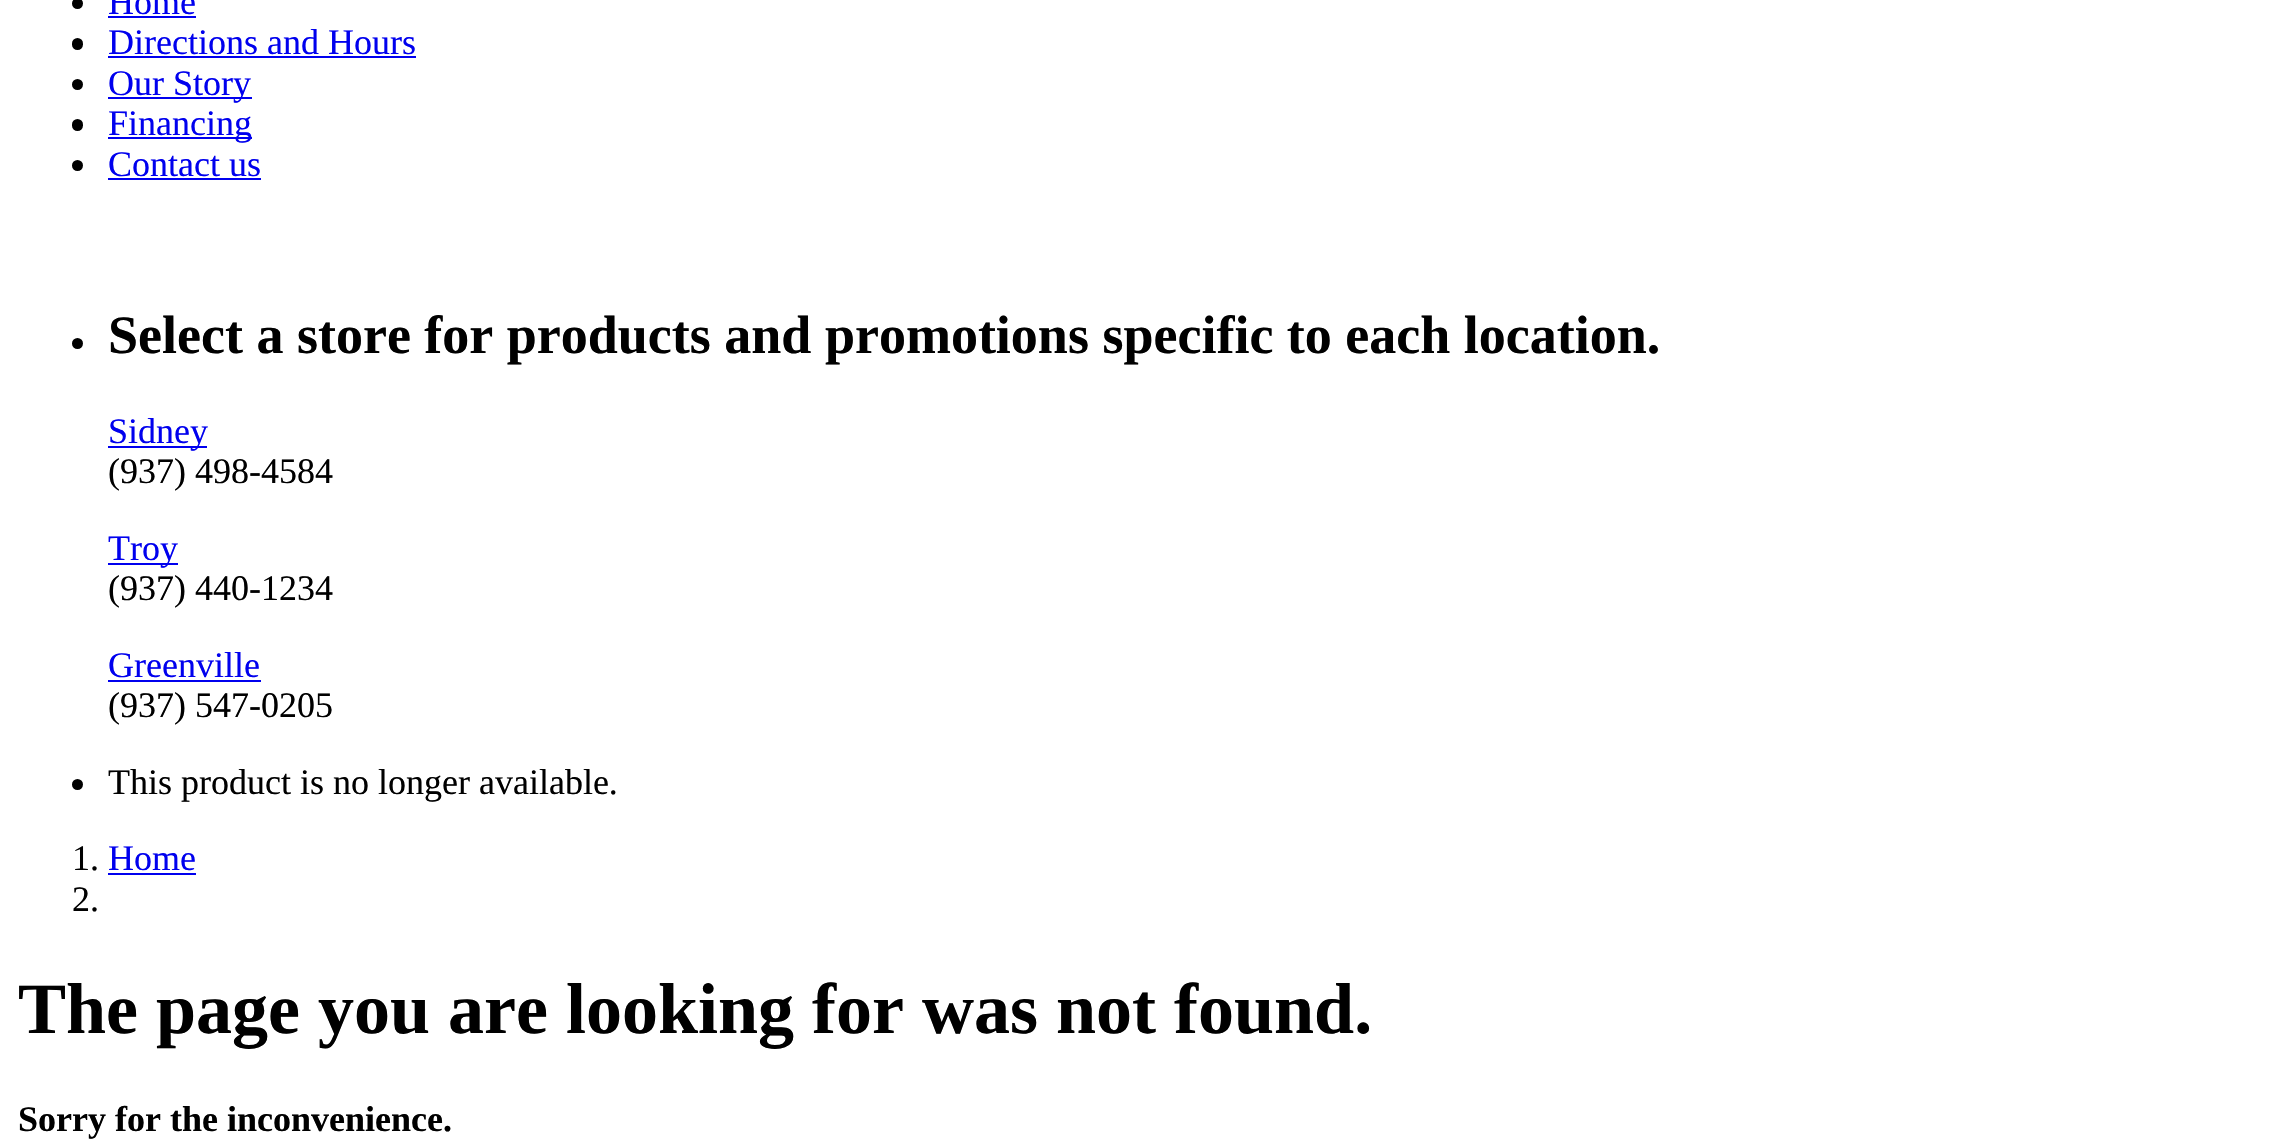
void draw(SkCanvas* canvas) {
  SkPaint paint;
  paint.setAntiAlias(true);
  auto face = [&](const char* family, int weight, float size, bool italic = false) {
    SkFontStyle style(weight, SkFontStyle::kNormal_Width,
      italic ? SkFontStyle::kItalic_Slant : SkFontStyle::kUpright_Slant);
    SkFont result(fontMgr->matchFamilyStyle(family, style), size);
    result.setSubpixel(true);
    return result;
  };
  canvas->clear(0xffffffff);
  paint.setColor(0xff000000);
  canvas->drawCircle(77.5f, 3.5f, 5.5f, paint);
  paint.setColor(0xff0000ee);
  canvas->drawRect(SkRect::MakeXYWH(108, 16, 88, 2), paint);
  paint.setColor(0xff000000);
  canvas->drawRoundRect(SkRect::MakeXYWH(72, 38, 11, 12), 5.5f, 5.5f, paint);
  paint.setColor(0xff0000ee);
  canvas->drawRect(SkRect::MakeXYWH(108, 56, 308, 2), paint);
  paint.setColor(0xff000000);
  canvas->drawCircle(77.5f, 84.5f, 5.5f, paint);
  paint.setColor(0xff0000ee);
  canvas->drawRect(SkRect::MakeXYWH(108, 97, 144, 2), paint);
  paint.setColor(0xff000000);
  canvas->drawRoundRect(SkRect::MakeXYWH(72, 119, 11, 12), 5.5f, 5.5f, paint);
  paint.setColor(0xff0000ee);
  canvas->drawRect(SkRect::MakeXYWH(108, 137, 144, 2), paint);
  paint.setColor(0xff000000);
  canvas->drawCircle(77.5f, 165.5f, 5.5f, paint);
  paint.setColor(0xff0000ee);
  canvas->drawRect(SkRect::MakeXYWH(108, 178, 153, 2), paint);
  paint.setColor(0xff000000);
  canvas->drawCircle(77.5f, 343.5f, 5.5f, paint);
  {
    const struct { float x, y, w, h; SkColor color; } items[] = {
      {108, 446, 99, 2, 0xff0000ee},
      {108, 563, 70, 2, 0xff0000ee},
      {108, 680, 153, 2, 0xff0000ee},
    };
    for (auto [x, y, w, h, color] : items) {
      paint.setColor(color);
      canvas->drawRect(SkRect::MakeXYWH(x, y, w, h), paint);
    }
  }
  paint.setColor(0xff000000);
  canvas->drawCircle(77.5f, 784.5f, 5.5f, paint);
  paint.setColor(0xff0000ee);
  canvas->drawRect(SkRect::MakeXYWH(108, 873, 88, 2), paint);
  auto f0 = face("Liberation Serif", 400, 36);
  {
    const struct { const char* s; float x, y; } items[] = {
      {"Home", 108, 14},
      {"Directions and Hours", 108, 54},
      {"Our Story", 108, 95},
      {"Financing", 108, 135},
      {"Contact us", 108, 176},
    };
    for (auto [s, x, y] : items) {
      canvas->drawString(s, x, y, f0, paint);
    }
  }
  auto f1 = face("Liberation Serif", 700, 54);
  paint.setColor(0xff000000);
  canvas->drawString("Select a store for products and promotions specific to each location.", 108, 353, f1, paint);
  paint.setColor(0xff0000ee);
  canvas->drawString("Sidney", 108, 443, f0, paint);
  paint.setColor(0xff000000);
  canvas->drawString("(937) 498-4584", 108, 483, f0, paint);
  paint.setColor(0xff0000ee);
  canvas->drawString("Troy", 108, 560, f0, paint);
  paint.setColor(0xff000000);
  canvas->drawString("(937) 440-1234", 108, 600, f0, paint);
  paint.setColor(0xff0000ee);
  canvas->drawString("Greenville", 108, 677, f0, paint);
  paint.setColor(0xff000000);
  {
    const struct { const char* s; float x, y; } items[] = {
      {"(937) 547-0205", 108, 717},
      {"This product is no longer available.", 108, 794},
      {"1.", 72, 870},
    };
    for (auto [s, x, y] : items) {
      canvas->drawString(s, x, y, f0, paint);
    }
  }
  paint.setColor(0xff0000ee);
  canvas->drawString("Home", 108, 870, f0, paint);
  paint.setColor(0xff000000);
  canvas->drawString("2.", 72, 911, f0, paint);
  auto f2 = face("Liberation Serif", 700, 72);
  canvas->drawString("The page you are looking for was not found.", 18, 1033, f2, paint);
  auto f3 = face("Liberation Serif", 700, 36);
  canvas->drawString("Sorry for the inconvenience.", 18, 1131, f3, paint);
}
